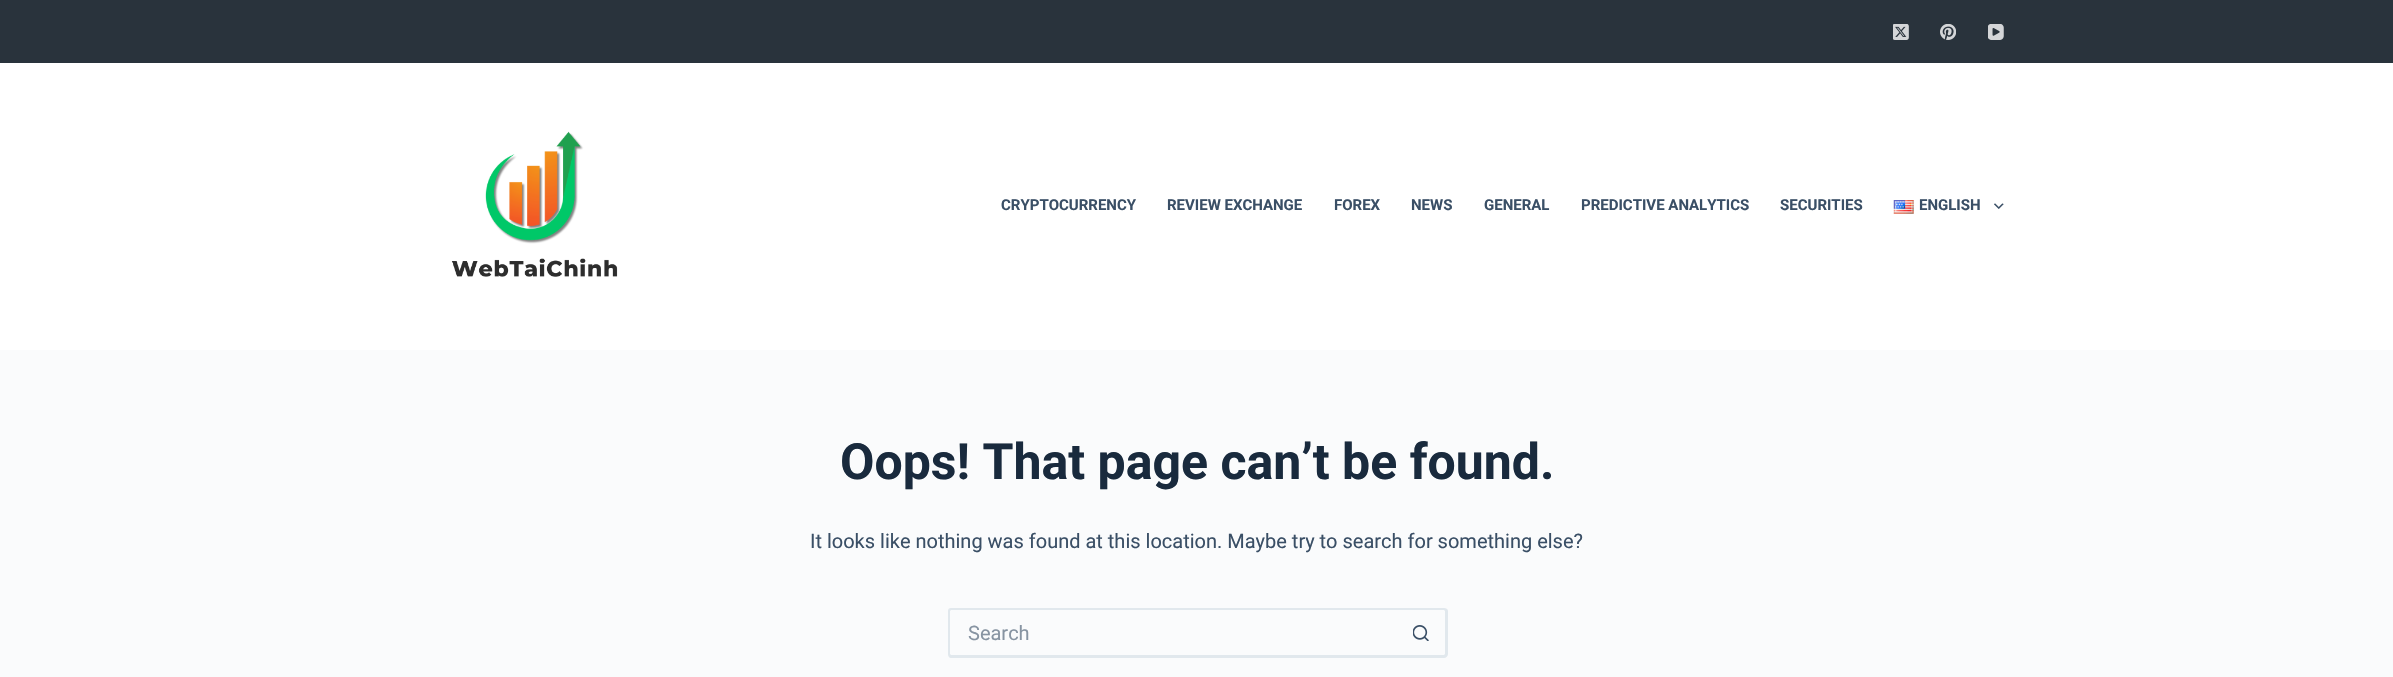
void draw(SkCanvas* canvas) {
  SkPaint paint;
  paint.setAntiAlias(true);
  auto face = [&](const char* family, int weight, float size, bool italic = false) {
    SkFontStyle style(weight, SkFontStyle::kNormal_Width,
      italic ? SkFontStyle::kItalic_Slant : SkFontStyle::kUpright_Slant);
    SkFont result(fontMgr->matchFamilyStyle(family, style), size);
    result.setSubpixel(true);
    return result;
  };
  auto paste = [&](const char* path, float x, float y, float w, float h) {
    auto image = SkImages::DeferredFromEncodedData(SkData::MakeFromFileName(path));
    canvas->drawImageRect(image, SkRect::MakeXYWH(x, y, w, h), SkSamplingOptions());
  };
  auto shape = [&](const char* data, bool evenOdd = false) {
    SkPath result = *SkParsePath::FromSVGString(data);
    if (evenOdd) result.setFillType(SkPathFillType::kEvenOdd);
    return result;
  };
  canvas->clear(0xfffafbfc);
  paint.setColor(0xff29333c);
  canvas->drawRect(SkRect::MakeXYWH(0, 0, 2393, 63), paint);
  paste("img/1.png", 1893, 24, 16, 16);
  paste("img/2.png", 1940, 24, 16, 16);
  paste("img/3.png", 1988, 24, 16, 16);
  paint.setColor(0xffffffff);
  canvas->drawRect(SkRect::MakeXYWH(0, 63, 2393, 287), paint);
  paste("img/4.png", 451, 131, 167, 146);
  paste("img/5.png", 1893, 200, 21, 14);
  paste("img/6.png", 1994, 203, 10, 6);
  paint.setColor(0xffe1e8ed);
  canvas->drawPath(shape("M951 608H1398V658H951C949 658 948 656 948 654V611C948 609 949 608 951 608ZM951 610H1398V655H951L950 654V611C950 611 951 610 951 610Z", true), paint);
  canvas->drawPath(shape("M1398 608H1444C1446 608 1448 609 1448 611V654C1448 656 1446 658 1444 658H1398ZM1398 610H1444C1444 610 1445 611 1445 611V654C1445 654 1444 655 1444 655H1398Z", true), paint);
  paste("img/7.png", 1413, 625, 16, 16);
  auto f0 = face("Roboto", 700, 15);
  paint.setColor(0xff3a4f66);
  {
    const struct { const char* s; float x, y; } items[] = {
      {"CRYPTOCURRENCY", 1001, 210},
      {"REVIEW EXCHANGE", 1167, 210},
      {"FOREX", 1334, 210},
      {"NEWS", 1411, 210},
      {"GENERAL", 1484, 210},
      {"PREDICTIVE ANALYTICS", 1581, 210},
      {"SECURITIES", 1780, 210},
      {"ENGLISH", 1919, 210},
    };
    for (auto [s, x, y] : items) {
      canvas->drawString(s, x, y, f0, paint);
    }
  }
  auto f1 = face("Roboto", 700, 50);
  paint.setColor(0xff192a3d);
  canvas->drawString("Oops! That page can’t be found.", 840, 479, f1, paint);
  auto f2 = face("Roboto", 400, 20);
  paint.setColor(0xff3a4f66);
  canvas->drawString("It looks like nothing was found at this location. Maybe try to search for something else?", 810, 548, f2, paint);
  paint.setColor(0xff8794a2);
  canvas->drawString("Search", 968, 640, f2, paint);
}
